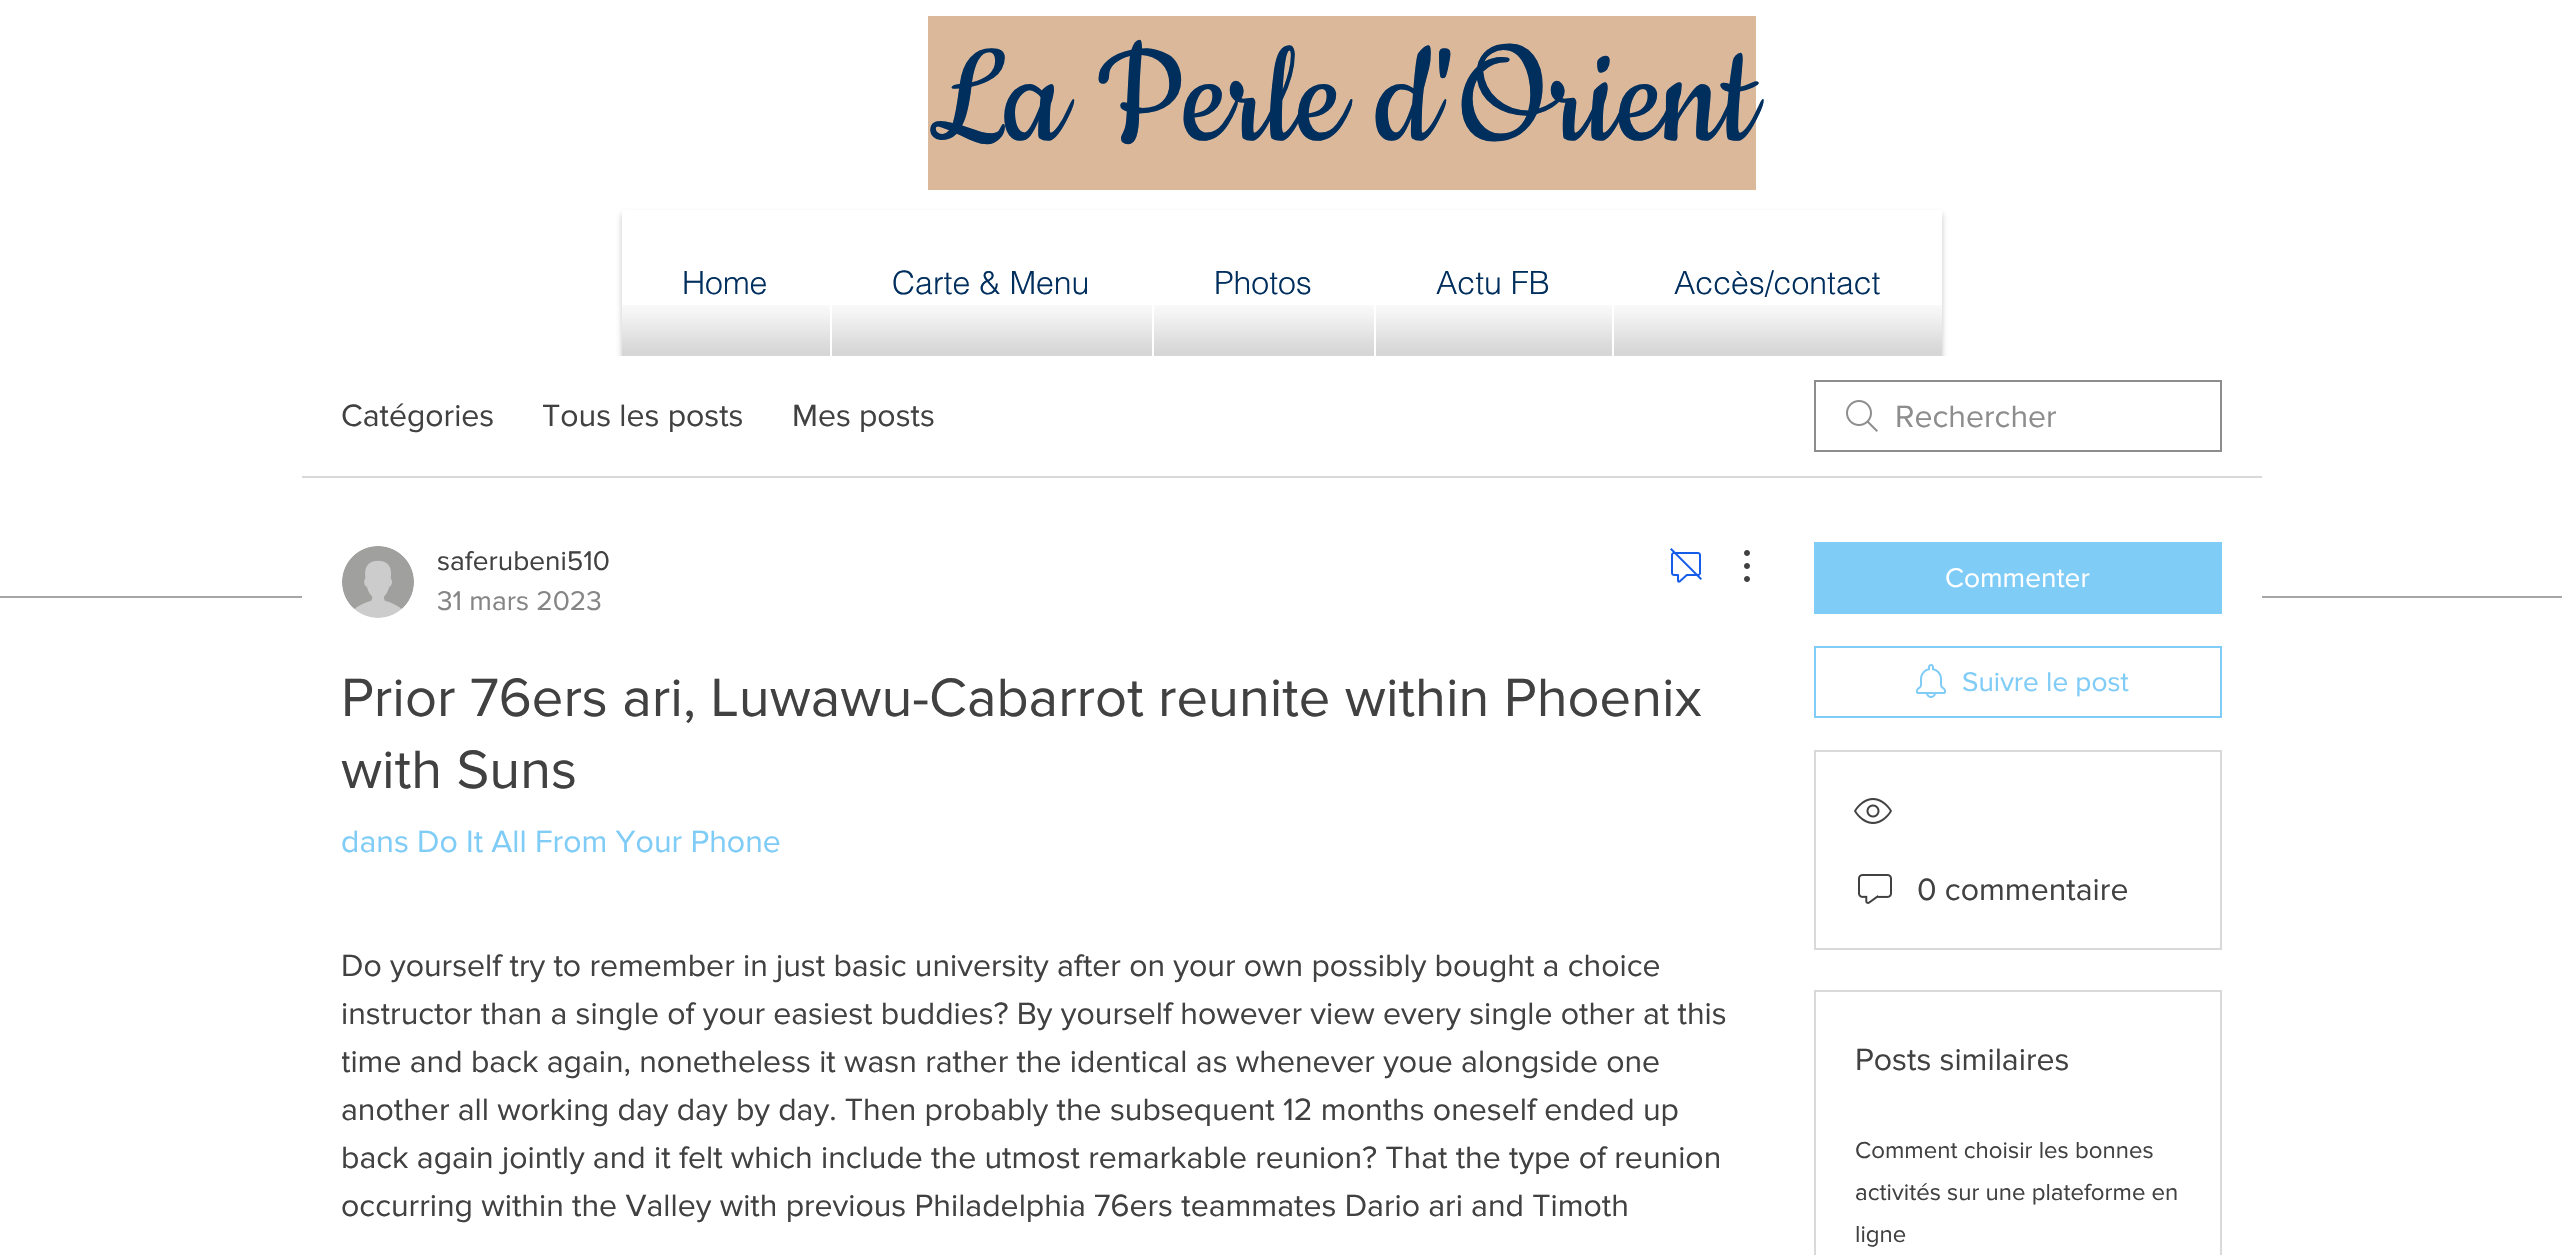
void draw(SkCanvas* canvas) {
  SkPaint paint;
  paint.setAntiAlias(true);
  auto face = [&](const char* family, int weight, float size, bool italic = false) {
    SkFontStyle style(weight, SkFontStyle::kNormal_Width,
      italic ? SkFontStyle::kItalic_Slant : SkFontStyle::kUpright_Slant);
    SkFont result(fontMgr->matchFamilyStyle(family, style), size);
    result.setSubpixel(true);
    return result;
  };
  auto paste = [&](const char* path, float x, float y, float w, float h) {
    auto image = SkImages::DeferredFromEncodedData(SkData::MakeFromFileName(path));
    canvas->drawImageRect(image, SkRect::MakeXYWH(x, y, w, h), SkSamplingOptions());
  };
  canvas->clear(0xffffffff);
  paint.setColor(0xffdbb89a);
  canvas->drawRect(SkRect::MakeXYWH(928, 16, 828, 174), paint);
  paint.setColor(0x99a29e9e);
  paint.setMaskFilter(SkMaskFilter::MakeBlur(kNormal_SkBlurStyle, 3));
  canvas->drawRect(SkRect::MakeXYWH(622, 214, 1320, 146), paint);
  paint.setMaskFilter(nullptr);
  paint.setColor(0xffffffff);
  canvas->drawRect(SkRect::MakeXYWH(622, 210, 1320, 146), paint);
  paste("img/1.png", 622, 305, 208, 51);
  paint.setColor(0x08ffffff);
  canvas->drawRect(SkRect::MakeXYWH(896, 270, 138, 6), paint);
  paste("img/2.png", 832, 305, 320, 51);
  paste("img/3.png", 1154, 305, 220, 51);
  paste("img/4.png", 1376, 305, 236, 51);
  canvas->drawRect(SkRect::MakeXYWH(1682, 270, 194, 6), paint);
  paste("img/5.png", 1614, 305, 328, 51);
  {
    const struct { float x, y, w, h; SkColor color; } items[] = {
      {0, 596, 2562, 2, 0xffa6a6a6},
      {302, 356, 1960, 242, 0xffffffff},
      {302, 476, 1960, 2, 0xffd9d9d9},
    };
    for (auto [x, y, w, h, color] : items) {
      paint.setColor(color);
      canvas->drawRect(SkRect::MakeXYWH(x, y, w, h), paint);
    }
  }
  paste("img/6.png", 1846, 400, 32, 32);
  paint.setStroke(true);
  paint.setStrokeWidth(2);
  paint.setColor(0xff8d8d8d);
  canvas->drawRect(SkRect::MakeXYWH(1815, 381, 406, 70), paint);
  paste("img/7.png", 342, 546, 72, 72);
  paste("img/8.png", 1670, 548, 32, 35);
  paste("img/9.png", 1744, 550, 6, 32);
  paint.setStroke(false);
  paint.setColor(0xff7fccf7);
  canvas->drawRect(SkRect::MakeXYWH(1814, 542, 408, 72), paint);
  paint.setStroke(true);
  canvas->drawRect(SkRect::MakeXYWH(1815, 647, 406, 70), paint);
  paste("img/10.png", 1916, 664, 30, 34);
  paint.setColor(0xffd9d9d9);
  canvas->drawRect(SkRect::MakeXYWH(1815, 751, 406, 198), paint);
  paste("img/11.png", 1854, 798, 38, 26);
  paste("img/12.png", 1858, 874, 34, 30);
  canvas->drawRect(SkRect::MakeXYWH(1815, 991, 406, 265), paint);
  auto f0 = face("Cookie", 400, 158);
  paint.setStroke(false);
  paint.setColor(0xff002e5d);
  canvas->drawString("La Perle d'Orient", 928, 140, f0, paint);
  auto f1 = face("helvetica", 300, 32);
  {
    const struct { const char* s; float x, y; } items[] = {
      {"Home", 682, 294},
      {"Carte & Menu", 892, 294},
      {"Photos", 1214, 294},
      {"Actu FB", 1436, 294},
      {"Accès/contact", 1674, 294},
    };
    for (auto [s, x, y] : items) {
      canvas->drawString(s, x, y, f1, paint);
    }
  }
  auto f2 = face("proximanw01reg", 400, 32);
  paint.setColor(0xff414141);
  {
    const struct { const char* s; float x, y; } items[] = {
      {"Catégories", 341, 426},
      {"Tous les posts", 542, 426},
      {"Mes posts", 792, 426},
    };
    for (auto [s, x, y] : items) {
      canvas->drawString(s, x, y, f2, paint);
    }
  }
  paint.setColor(0xff8d8d8d);
  canvas->drawString("Rechercher", 1895, 427, f2, paint);
  auto f3 = face("proximanw01reg", 400, 28);
  paint.setColor(0xff414141);
  canvas->drawString("saferubeni510", 437, 570, f3, paint);
  paint.setColor(0xff858585);
  canvas->drawString("31 mars 2023", 437, 610, f3, paint);
  auto f4 = face("proximanw01reg", 400, 56);
  paint.setColor(0xff414141);
  canvas->drawString("Prior 76ers ari, Luwawu-Cabarrot reunite within Phoenix", 341, 716, f4, paint);
  canvas->drawString("with Suns", 341, 788, f4, paint);
  paint.setColor(0xff7fccf7);
  canvas->drawString("dans Do It All From Your Phone", 341, 852, f2, paint);
  paint.setColor(0xff414141);
  canvas->drawString("Do yourself try to remember in just basic university after on your own possibly bought a choice", 341, 976, f2, paint);
  canvas->drawString("instructor than a single of your easiest buddies? By yourself however view every single other at this", 341, 1024, f2, paint);
  canvas->save();
  canvas->clipRect(SkRect::MakeXYWH(342, 894, 1408, 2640));
  canvas->drawString("time and back again, nonetheless it wasn rather the identical as whenever youe alongside one", 341, 1072, f2, paint);
  canvas->restore();
  {
    const struct { const char* s; float x, y; } items[] = {
      {"another all working day day by day. Then probably the subsequent 12 months oneself ended up", 341, 1120},
      {"back again jointly and it felt which include the utmost remarkable reunion? That the type of reunion", 341, 1168},
      {"occurring within the Valley with previous Philadelphia 76ers teammates Dario ari and Timoth", 341, 1216},
    };
    for (auto [s, x, y] : items) {
      canvas->drawString(s, x, y, f2, paint);
    }
  }
  paint.setColor(0xffffffff);
  canvas->drawString("Commenter", 1945, 587, f3, paint);
  paint.setColor(0xff7fccf7);
  canvas->drawString("Suivre le post", 1962, 691, f3, paint);
  paint.setColor(0xff414141);
  canvas->drawString("0 commentaire", 1917, 900, f2, paint);
  canvas->drawString("Posts similaires", 1855, 1070, f2, paint);
  auto f5 = face("proximanw01reg", 400, 24);
  {
    const struct { const char* s; float x, y; } items[] = {
      {"Comment choisir les bonnes", 1855, 1158},
      {"activités sur une plateforme en", 1855, 1200},
      {"ligne", 1855, 1242},
    };
    for (auto [s, x, y] : items) {
      canvas->drawString(s, x, y, f5, paint);
    }
  }
}
